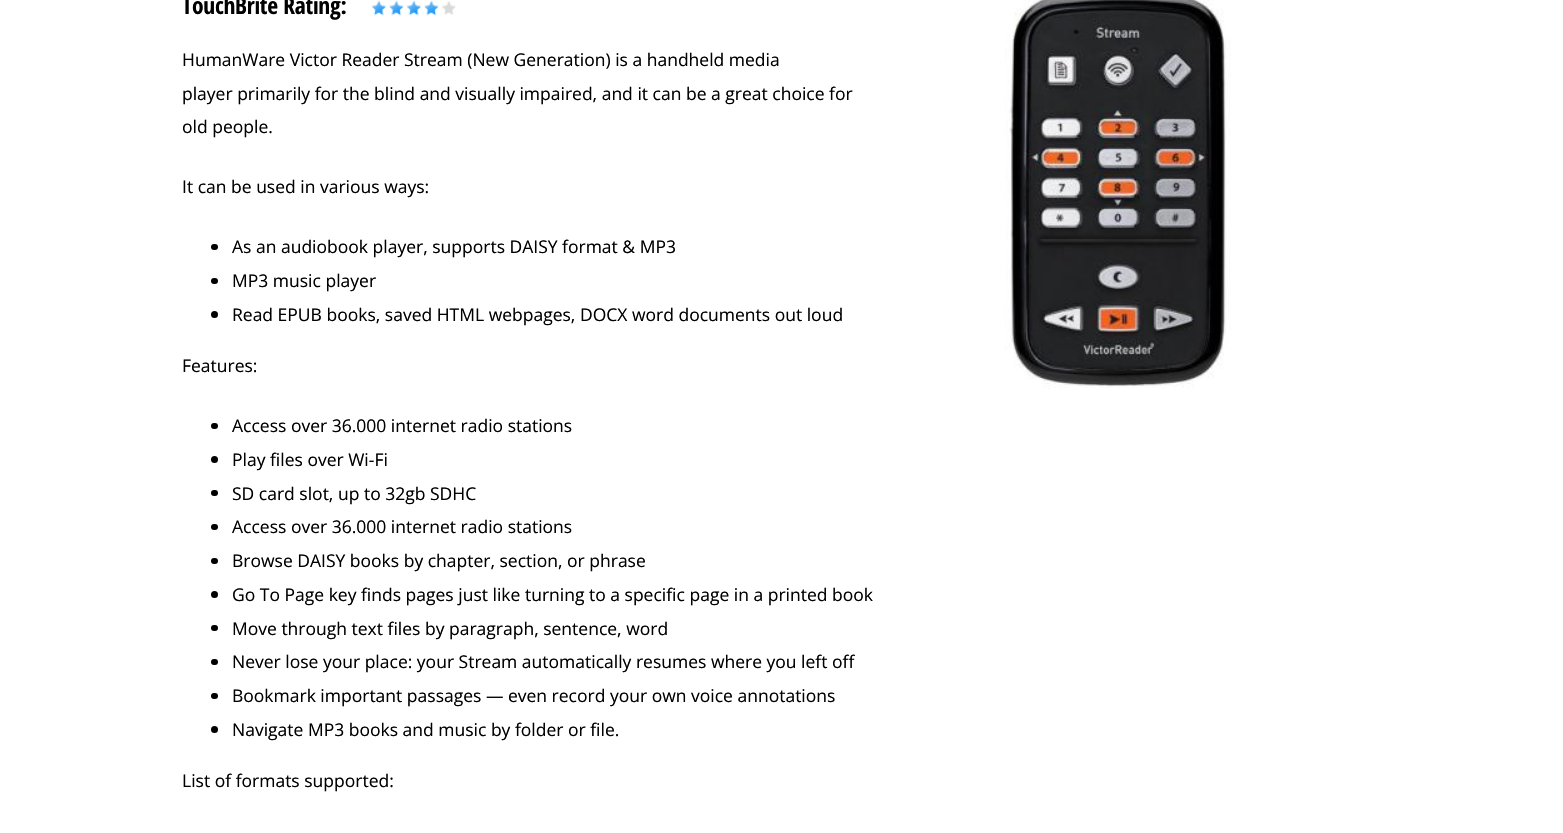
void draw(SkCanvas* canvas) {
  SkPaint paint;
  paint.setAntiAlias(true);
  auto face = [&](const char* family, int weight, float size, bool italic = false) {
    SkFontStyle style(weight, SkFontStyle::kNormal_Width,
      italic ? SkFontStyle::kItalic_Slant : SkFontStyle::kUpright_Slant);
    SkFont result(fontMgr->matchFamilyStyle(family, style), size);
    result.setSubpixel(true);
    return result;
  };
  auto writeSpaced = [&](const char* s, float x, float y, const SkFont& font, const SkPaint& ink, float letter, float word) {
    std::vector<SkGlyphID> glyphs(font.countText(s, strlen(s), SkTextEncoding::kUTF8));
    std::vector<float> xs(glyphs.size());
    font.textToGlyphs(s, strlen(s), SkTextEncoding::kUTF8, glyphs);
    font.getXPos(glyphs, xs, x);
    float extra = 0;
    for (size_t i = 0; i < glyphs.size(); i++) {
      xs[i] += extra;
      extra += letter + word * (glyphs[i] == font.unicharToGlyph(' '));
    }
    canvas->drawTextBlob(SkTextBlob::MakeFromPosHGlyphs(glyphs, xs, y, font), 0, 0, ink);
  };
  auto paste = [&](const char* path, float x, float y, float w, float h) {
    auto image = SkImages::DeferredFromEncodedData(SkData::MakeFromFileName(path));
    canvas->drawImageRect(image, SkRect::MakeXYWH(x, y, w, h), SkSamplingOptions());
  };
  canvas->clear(0xffffffff);
  paste("img/1.png", 371, 0, 16, 16);
  paste("img/2.png", 389, 0, 15, 16);
  paste("img/1.png", 406, 0, 16, 16);
  paste("img/3.png", 424, 0, 15, 16);
  paste("img/4.png", 442, 1, 14, 14);
  paste("img/5.png", 1005, 0, 226, 389);
  paint.setColor(0xff000000);
  canvas->drawRoundRect(SkRect::MakeXYWH(211, 244, 7, 6), 3, 3, paint);
  canvas->drawRoundRect(SkRect::MakeXYWH(211, 278, 7, 6), 3, 3, paint);
  canvas->drawCircle(214.5f, 314.5f, 3.5f, paint);
  canvas->drawRoundRect(SkRect::MakeXYWH(211, 423, 7, 6), 3, 3, paint);
  canvas->drawCircle(214.5f, 459.5f, 3.5f, paint);
  canvas->drawRoundRect(SkRect::MakeXYWH(211, 490, 7, 6), 3, 3, paint);
  canvas->drawRoundRect(SkRect::MakeXYWH(211, 524, 7, 6), 3, 3, paint);
  canvas->drawRoundRect(SkRect::MakeXYWH(211, 558, 7, 6), 3, 3, paint);
  canvas->drawCircle(214.5f, 594.5f, 3.5f, paint);
  canvas->drawRoundRect(SkRect::MakeXYWH(211, 625, 7, 6), 3, 3, paint);
  canvas->drawRoundRect(SkRect::MakeXYWH(211, 659, 7, 6), 3, 3, paint);
  canvas->drawRoundRect(SkRect::MakeXYWH(211, 693, 7, 6), 3, 3, paint);
  canvas->drawCircle(214.5f, 729.5f, 3.5f, paint);
  auto f0 = face("Open Sans Condensed", 700, 23.5f);
  writeSpaced("TouchBrite Rating:", 182, 14, f0, paint, -0.25f, 0);
  auto f1 = face("Open Sans", 400, 17.5f);
  {
    const struct { const char* s; float x, y; } items[] = {
      {"HumanWare Victor Reader Stream (New Generation) is a handheld media", 182, 66},
      {"player primarily for the blind and visually impaired, and it can be a great choice for", 182, 100},
      {"old people.", 182, 133},
      {"It can be used in various ways:", 182, 193},
      {"As an audiobook player, supports DAISY format & MP3", 232, 253},
      {"MP3 music player", 232, 287},
      {"Read EPUB books, saved HTML webpages, DOCX word documents out loud", 232, 321},
      {"Features:", 182, 372},
      {"Access over 36.000 internet radio stations", 232, 432},
      {"Play files over Wi-Fi", 232, 466},
      {"SD card slot, up to 32gb SDHC", 232, 500},
      {"Access over 36.000 internet radio stations", 232, 533},
      {"Browse DAISY books by chapter, section, or phrase", 232, 567},
      {"Go To Page key finds pages just like turning to a specific page in a printed book", 232, 601},
      {"Move through text files by paragraph, sentence, word", 232, 635},
      {"Never lose your place: your Stream automatically resumes where you left off", 232, 668},
      {"Bookmark important passages — even record your own voice annotations", 232, 702},
      {"Navigate MP3 books and music by folder or file.", 232, 736},
      {"List of formats supported:", 182, 787},
    };
    for (auto [s, x, y] : items) {
      canvas->drawString(s, x, y, f1, paint);
    }
  }
}
